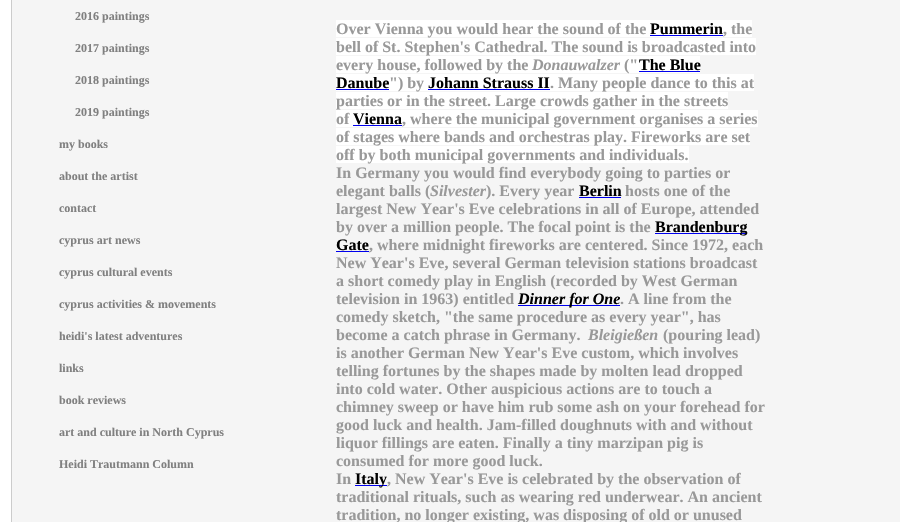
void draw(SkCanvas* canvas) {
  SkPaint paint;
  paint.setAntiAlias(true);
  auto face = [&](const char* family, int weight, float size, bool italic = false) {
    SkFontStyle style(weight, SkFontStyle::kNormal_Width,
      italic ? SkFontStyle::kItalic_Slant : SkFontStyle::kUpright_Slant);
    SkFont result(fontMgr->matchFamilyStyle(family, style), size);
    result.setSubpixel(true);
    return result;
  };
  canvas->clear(0xffffffff);
  paint.setColor(0xfff5f5f5);
  canvas->drawRect(SkRect::MakeXYWH(11.5f, -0.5f, 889, 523), paint);
  paint.setStroke(true);
  paint.setStrokeWidth(1);
  paint.setColor(0xffcccccc);
  canvas->drawRect(SkRect::MakeXYWH(11.5f, -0.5f, 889, 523), paint);
  paint.setStroke(false);
  {
    const struct { float x, y, w, h; SkColor color; } items[] = {
      {336, 20, 416, 17, 0xffffffff},
      {650, 35, 73, 1, 0xff0000ee},
      {336, 38, 420, 17, 0xffffffff},
      {336, 56, 364, 17, 0xffffffff},
      {639, 71, 61, 1, 0xff0000ee},
      {336, 74, 418, 17, 0xffffffff},
      {336, 89, 53, 1, 0xff0000ee},
      {428, 89, 122, 1, 0xff0000ee},
      {336, 92, 392, 17, 0xffffffff},
      {336, 110, 422, 17, 0xffffffff},
      {353, 125, 49, 1, 0xff0000ee},
      {336, 128, 414, 17, 0xffffffff},
      {336, 146, 353, 17, 0xffffffff},
      {579, 197, 42, 1, 0xff0000ee},
      {655, 233, 92, 1, 0xff0000ee},
      {336, 251, 33, 1, 0xff0000ee},
      {518, 305, 102, 1, 0xff0000ee},
      {355, 485, 32, 1, 0xff0000ee},
    };
    for (auto [x, y, w, h, color] : items) {
      paint.setColor(color);
      canvas->drawRect(SkRect::MakeXYWH(x, y, w, h), paint);
    }
  }
  auto f0 = face("Liberation Serif", 700, 12);
  paint.setColor(0xff808080);
  {
    const struct { const char* s; float x, y; } items[] = {
      {"2016 paintings", 75, 20},
      {"2017 paintings", 75, 52},
      {"2018 paintings", 75, 84},
      {"2019 paintings", 75, 116},
      {"my books", 59, 148},
      {"about the artist", 59, 180},
      {"contact", 59, 212},
      {"cyprus art news", 59, 244},
      {"cyprus cultural events", 59, 276},
      {"cyprus activities & movements", 59, 308},
      {"heidi's latest adventures", 59, 340},
      {"links", 59, 372},
      {"book reviews", 59, 404},
      {"art and culture in North Cyprus", 59, 436},
      {"Heidi Trautmann Column", 59, 468},
    };
    for (auto [s, x, y] : items) {
      canvas->drawString(s, x, y, f0, paint);
    }
  }
  auto f1 = face("Liberation Serif", 700, 16);
  paint.setColor(0xff999999);
  canvas->drawString("Over Vienna you would hear the sound of the", 336, 34, f1, paint);
  paint.setColor(0xff000000);
  canvas->drawString("Pummerin", 650, 34, f1, paint);
  paint.setColor(0xff999999);
  {
    const struct { const char* s; float x, y; } items[] = {
      {", the", 723, 34},
      {"bell of St. Stephen's Cathedral. The sound is broadcasted into", 336, 52},
      {"every house, followed by the", 336, 70},
    };
    for (auto [s, x, y] : items) {
      canvas->drawString(s, x, y, f1, paint);
    }
  }
  auto f2 = face("Liberation Serif", 700, 16, true);
  canvas->drawString("Donauwalzer", 532, 70, f2, paint);
  canvas->drawString("(\"", 624, 70, f1, paint);
  paint.setColor(0xff000000);
  canvas->drawString("The Blue", 639, 70, f1, paint);
  canvas->drawString("Danube", 336, 88, f1, paint);
  paint.setColor(0xff999999);
  canvas->drawString("\") by", 389, 88, f1, paint);
  paint.setColor(0xff000000);
  canvas->drawString("Johann Strauss II", 428, 88, f1, paint);
  paint.setColor(0xff999999);
  {
    const struct { const char* s; float x, y; } items[] = {
      {". Many people dance to this at", 550, 88},
      {"parties or in the street. Large crowds gather in the streets", 336, 106},
      {"of", 336, 124},
    };
    for (auto [s, x, y] : items) {
      canvas->drawString(s, x, y, f1, paint);
    }
  }
  paint.setColor(0xff000000);
  canvas->drawString("Vienna", 353, 124, f1, paint);
  paint.setColor(0xff999999);
  {
    const struct { const char* s; float x, y; } items[] = {
      {", where the municipal government organises a series", 402, 124},
      {"of stages where bands and orchestras play. Fireworks are set", 336, 142},
      {"off by both municipal governments and individuals.", 336, 160},
      {"In Germany you would find everybody going to parties or", 336, 178},
      {"elegant balls (", 336, 196},
    };
    for (auto [s, x, y] : items) {
      canvas->drawString(s, x, y, f1, paint);
    }
  }
  canvas->drawString("Silvester", 430, 196, f2, paint);
  canvas->drawString("). Every year", 486, 196, f1, paint);
  paint.setColor(0xff000000);
  canvas->drawString("Berlin", 579, 196, f1, paint);
  paint.setColor(0xff999999);
  {
    const struct { const char* s; float x, y; } items[] = {
      {"hosts one of the", 625, 196},
      {"largest New Year's Eve celebrations in all of Europe, attended", 336, 214},
      {"by over a million people. The focal point is the", 336, 232},
    };
    for (auto [s, x, y] : items) {
      canvas->drawString(s, x, y, f1, paint);
    }
  }
  paint.setColor(0xff000000);
  canvas->drawString("Brandenburg", 655, 232, f1, paint);
  canvas->drawString("Gate", 336, 250, f1, paint);
  paint.setColor(0xff999999);
  {
    const struct { const char* s; float x, y; } items[] = {
      {", where midnight fireworks are centered. Since 1972, each", 369, 250},
      {"New Year's Eve, several German television stations broadcast", 336, 268},
      {"a short comedy play in English (recorded by West German", 336, 286},
      {"television in 1963) entitled", 336, 304},
    };
    for (auto [s, x, y] : items) {
      canvas->drawString(s, x, y, f1, paint);
    }
  }
  paint.setColor(0xff000000);
  canvas->drawString("Dinner for One", 518, 304, f2, paint);
  paint.setColor(0xff999999);
  {
    const struct { const char* s; float x, y; } items[] = {
      {". A line from the", 620, 304},
      {"comedy sketch, \"the same procedure as every year\", has", 336, 322},
      {"become a catch phrase in Germany.", 336, 340},
    };
    for (auto [s, x, y] : items) {
      canvas->drawString(s, x, y, f1, paint);
    }
  }
  canvas->drawString("Bleigießen", 588, 340, f2, paint);
  {
    const struct { const char* s; float x, y; } items[] = {
      {"(pouring lead)", 663, 340},
      {"is another German New Year's Eve custom, which involves", 336, 358},
      {"telling fortunes by the shapes made by molten lead dropped", 336, 376},
      {"into cold water. Other auspicious actions are to touch a", 336, 394},
      {"chimney sweep or have him rub some ash on your forehead for", 336, 412},
      {"good luck and health. Jam-filled doughnuts with and without", 336, 430},
      {"liquor fillings are eaten. Finally a tiny marzipan pig is", 336, 448},
      {"consumed for more good luck.", 336, 466},
      {"In", 336, 484},
    };
    for (auto [s, x, y] : items) {
      canvas->drawString(s, x, y, f1, paint);
    }
  }
  paint.setColor(0xff000000);
  canvas->drawString("Italy", 355, 484, f1, paint);
  paint.setColor(0xff999999);
  {
    const struct { const char* s; float x, y; } items[] = {
      {", New Year's Eve is celebrated by the observation of", 387, 484},
      {"traditional rituals, such as wearing red underwear. An ancient", 336, 502},
      {"tradition, no longer existing, was disposing of old or unused", 336, 520},
    };
    for (auto [s, x, y] : items) {
      canvas->drawString(s, x, y, f1, paint);
    }
  }
}
